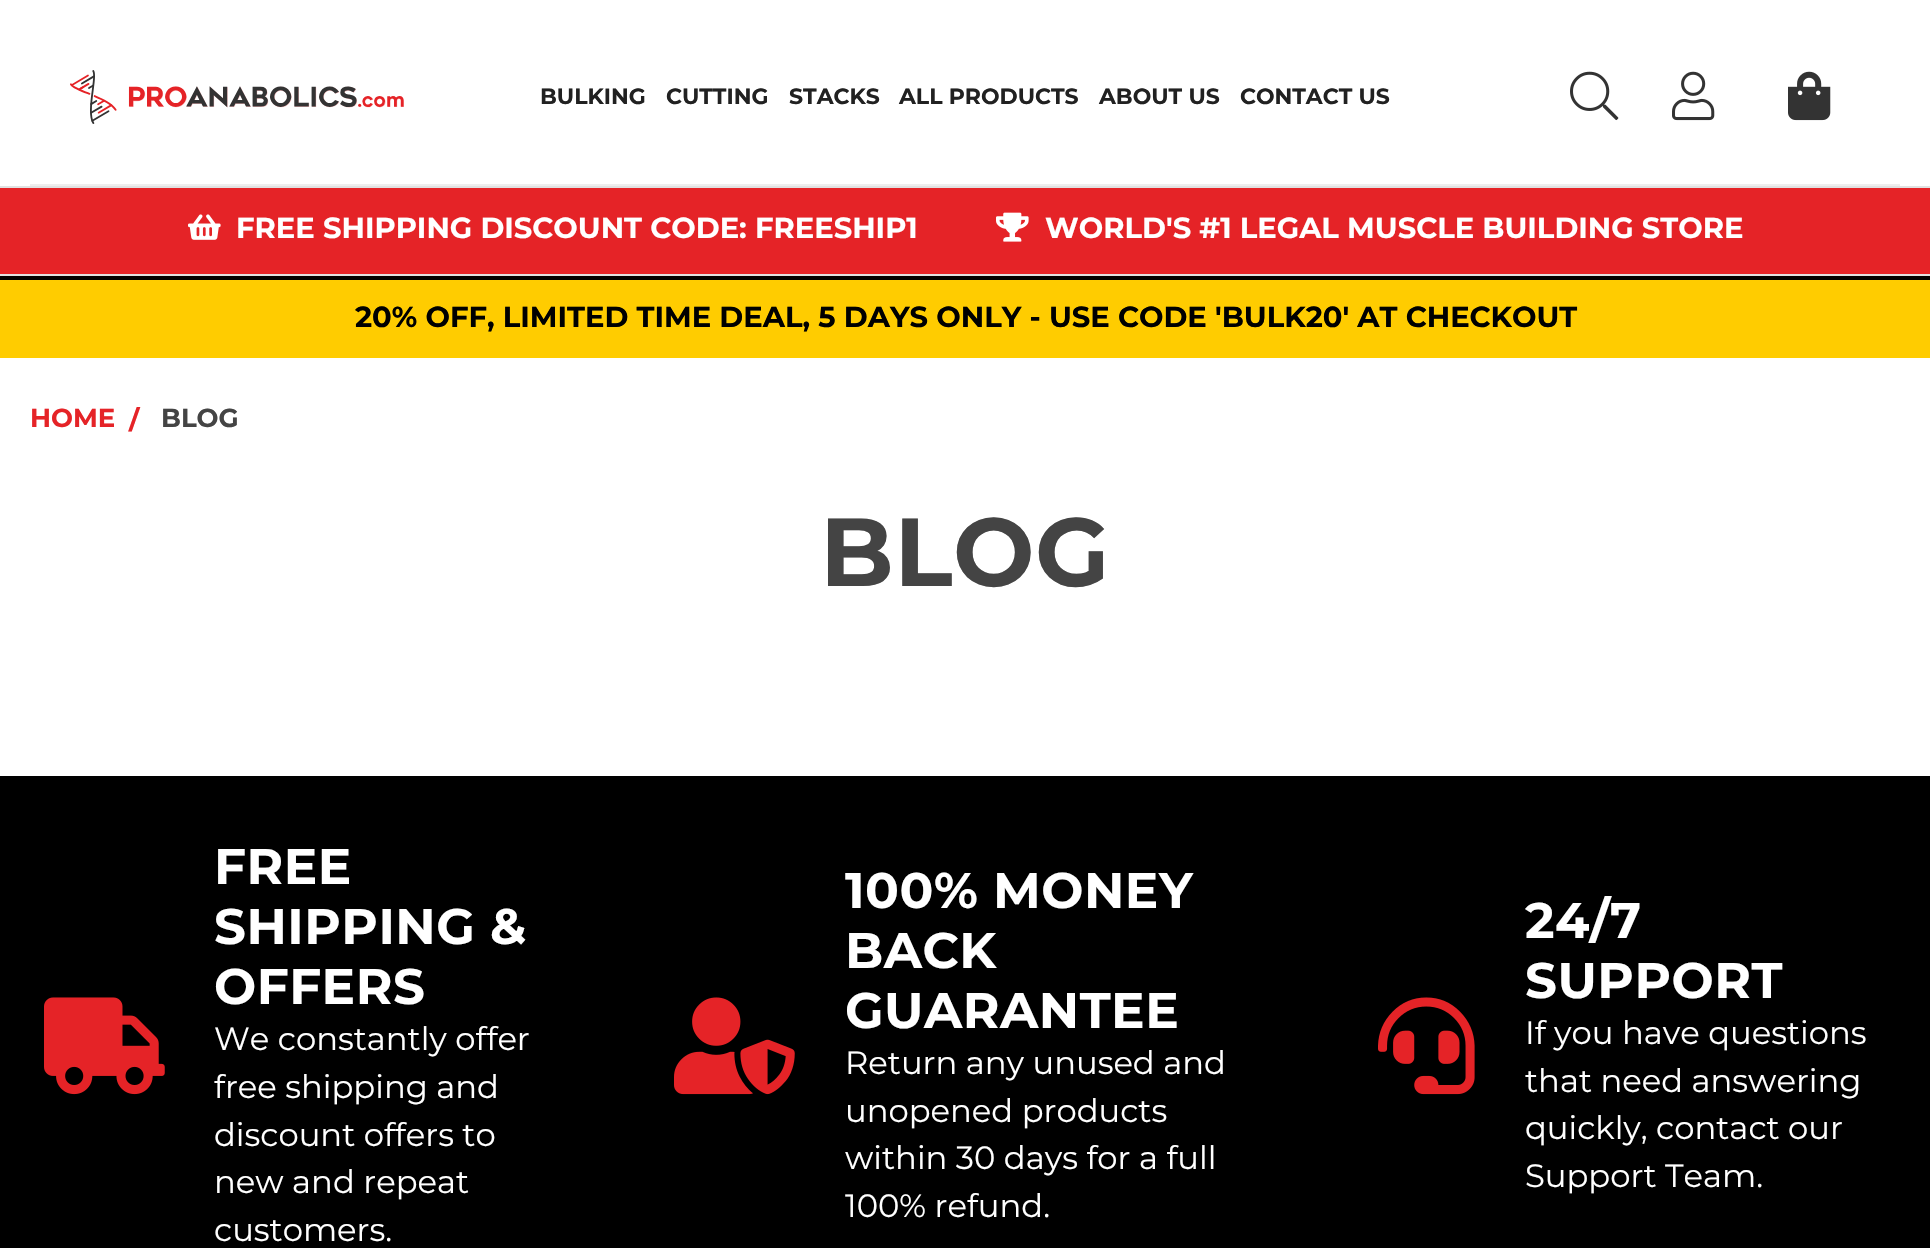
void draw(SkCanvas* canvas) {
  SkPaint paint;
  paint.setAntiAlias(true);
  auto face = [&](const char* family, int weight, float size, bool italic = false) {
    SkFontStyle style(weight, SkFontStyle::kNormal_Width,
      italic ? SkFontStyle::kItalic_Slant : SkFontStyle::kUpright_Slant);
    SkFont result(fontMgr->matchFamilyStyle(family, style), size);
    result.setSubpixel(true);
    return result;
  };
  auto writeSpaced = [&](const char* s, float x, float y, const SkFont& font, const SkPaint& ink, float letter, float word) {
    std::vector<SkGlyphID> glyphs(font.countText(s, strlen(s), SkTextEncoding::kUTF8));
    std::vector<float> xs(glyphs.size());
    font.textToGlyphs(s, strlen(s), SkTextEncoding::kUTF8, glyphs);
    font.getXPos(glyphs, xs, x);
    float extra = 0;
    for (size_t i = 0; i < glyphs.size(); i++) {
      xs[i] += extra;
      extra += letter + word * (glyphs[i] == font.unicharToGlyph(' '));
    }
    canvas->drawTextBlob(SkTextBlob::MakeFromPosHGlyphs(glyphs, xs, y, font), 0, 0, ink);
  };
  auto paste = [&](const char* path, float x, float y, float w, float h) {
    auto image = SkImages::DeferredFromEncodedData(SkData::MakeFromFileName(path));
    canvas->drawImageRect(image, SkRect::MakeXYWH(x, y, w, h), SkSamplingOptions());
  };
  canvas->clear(0xffffffff);
  paint.setColor(0xffeeeeee);
  canvas->drawRect(SkRect::MakeXYWH(30, 184, 1870, 2), paint);
  paste("img/1.png", 70, 70, 334, 54);
  paste("img/2.png", 1570, 71, 49, 50);
  paste("img/3.png", 1672, 71, 43, 50);
  paste("img/4.png", 1788, 71, 43, 50);
  {
    const struct { float x, y, w, h; SkColor color; } items[] = {
      {0, 188, 1930, 86, 0xffe52327},
      {0, 186, 1930, 2, 0xffe1e1e1},
      {0, 274, 1930, 2, 0xffe1e1e1},
    };
    for (auto [x, y, w, h, color] : items) {
      paint.setColor(color);
      canvas->drawRect(SkRect::MakeXYWH(x, y, w, h), paint);
    }
  }
  paste("img/5.png", 188, 214, 33, 26);
  paste("img/6.png", 996, 212, 33, 30);
  {
    const struct { float x, y, w, h; SkColor color; } items[] = {
      {0, 280, 1930, 78, 0xffffcc00},
      {0, 276, 1930, 4, 0xff000000},
      {0, 776, 1930, 472, 0xff000000},
    };
    for (auto [x, y, w, h, color] : items) {
      paint.setColor(color);
      canvas->drawRect(SkRect::MakeXYWH(x, y, w, h), paint);
    }
  }
  paste("img/7.png", 44, 997, 121, 98);
  paste("img/8.png", 674, 997, 121, 98);
  paste("img/9.png", 1378, 997, 97, 98);
  auto f0 = face("Montserrat", 700, 22);
  paint.setColor(0xff212121);
  {
    const struct { const char* s; float x, y; } items[] = {
      {"BULKING", 540, 104},
      {"CUTTING", 666, 104},
      {"STACKS", 789, 104},
      {"ALL PRODUCTS", 899, 104},
      {"ABOUT US", 1099, 104},
      {"CONTACT US", 1240, 104},
    };
    for (auto [s, x, y] : items) {
      canvas->drawString(s, x, y, f0, paint);
    }
  }
  auto f1 = face("Montserrat", 700, 29);
  paint.setColor(0xffffffff);
  canvas->drawString("FREE SHIPPING DISCOUNT CODE: FREESHIP1", 236, 238, f1, paint);
  canvas->drawString("WORLD'S #1 LEGAL MUSCLE BUILDING STORE", 1045, 238, f1, paint);
  paint.setColor(0xff000000);
  canvas->drawString("20% OFF, LIMITED TIME DEAL, 5 DAYS ONLY - USE CODE 'BULK20' AT CHECKOUT", 355, 327, f1, paint);
  auto f2 = face("Montserrat", 700, 26);
  paint.setColor(0xffe52327);
  canvas->drawString("HOME", 30, 427, f2, paint);
  canvas->drawString("/", 129, 429, f2, paint);
  paint.setColor(0xff444444);
  canvas->drawString("BLOG", 161, 427, f2, paint);
  auto f3 = face("Montserrat", 700, 96.5f);
  writeSpaced("BLOG", 820, 586, f3, paint, 0.5f, 0);
  auto f4 = face("Montserrat", 700, 50);
  paint.setColor(0xffffffff);
  {
    const struct { const char* s; float x, y; } items[] = {
      {"FREE", 214, 884},
      {"SHIPPING &", 214, 944},
      {"OFFERS", 214, 1004},
    };
    for (auto [s, x, y] : items) {
      writeSpaced(s, x, y, f4, paint, 0.5f, 0);
    }
  }
  auto f5 = face("Montserrat", 400, 32.25f);
  {
    const struct { const char* s; float x, y; } items[] = {
      {"We constantly offer", 214, 1050},
      {"free shipping and", 214, 1098},
      {"discount offers to", 214, 1146},
      {"new and repeat", 214, 1193},
      {"customers.", 214, 1241},
    };
    for (auto [s, x, y] : items) {
      canvas->drawString(s, x, y, f5, paint);
    }
  }
  {
    const struct { const char* s; float x, y; } items[] = {
      {"100% MONEY", 845, 908},
      {"BACK", 845, 968},
      {"GUARANTEE", 845, 1028},
    };
    for (auto [s, x, y] : items) {
      writeSpaced(s, x, y, f4, paint, 0.5f, 0);
    }
  }
  {
    const struct { const char* s; float x, y; } items[] = {
      {"Return any unused and", 845, 1074},
      {"unopened products", 845, 1122},
      {"within 30 days for a full", 845, 1169},
      {"100% refund.", 845, 1217},
    };
    for (auto [s, x, y] : items) {
      canvas->drawString(s, x, y, f5, paint);
    }
  }
  writeSpaced("24/7", 1525, 938, f4, paint, 0.5f, 0);
  writeSpaced("SUPPORT", 1525, 998, f4, paint, 0.5f, 0);
  {
    const struct { const char* s; float x, y; } items[] = {
      {"If you have questions", 1525, 1044},
      {"that need answering", 1525, 1092},
      {"quickly, contact our", 1525, 1139},
      {"Support Team.", 1525, 1187},
    };
    for (auto [s, x, y] : items) {
      canvas->drawString(s, x, y, f5, paint);
    }
  }
}
